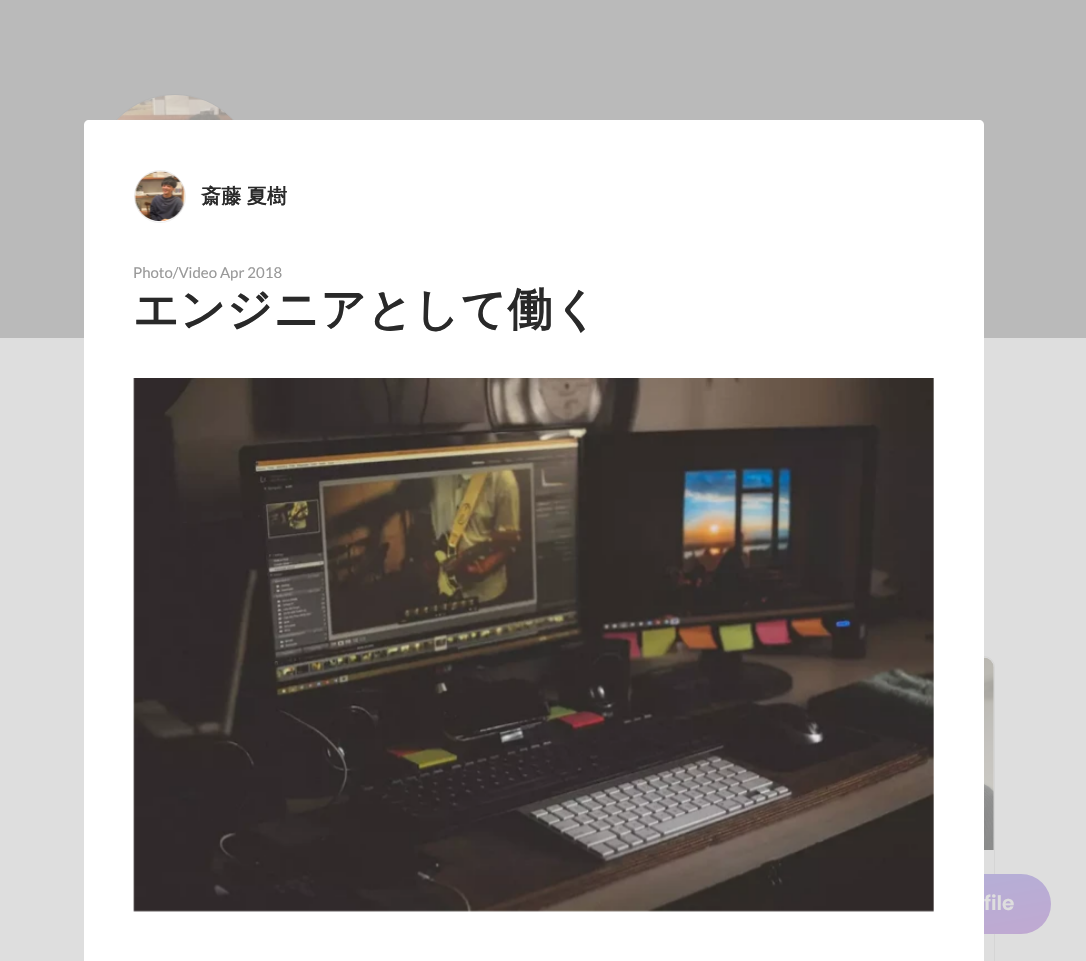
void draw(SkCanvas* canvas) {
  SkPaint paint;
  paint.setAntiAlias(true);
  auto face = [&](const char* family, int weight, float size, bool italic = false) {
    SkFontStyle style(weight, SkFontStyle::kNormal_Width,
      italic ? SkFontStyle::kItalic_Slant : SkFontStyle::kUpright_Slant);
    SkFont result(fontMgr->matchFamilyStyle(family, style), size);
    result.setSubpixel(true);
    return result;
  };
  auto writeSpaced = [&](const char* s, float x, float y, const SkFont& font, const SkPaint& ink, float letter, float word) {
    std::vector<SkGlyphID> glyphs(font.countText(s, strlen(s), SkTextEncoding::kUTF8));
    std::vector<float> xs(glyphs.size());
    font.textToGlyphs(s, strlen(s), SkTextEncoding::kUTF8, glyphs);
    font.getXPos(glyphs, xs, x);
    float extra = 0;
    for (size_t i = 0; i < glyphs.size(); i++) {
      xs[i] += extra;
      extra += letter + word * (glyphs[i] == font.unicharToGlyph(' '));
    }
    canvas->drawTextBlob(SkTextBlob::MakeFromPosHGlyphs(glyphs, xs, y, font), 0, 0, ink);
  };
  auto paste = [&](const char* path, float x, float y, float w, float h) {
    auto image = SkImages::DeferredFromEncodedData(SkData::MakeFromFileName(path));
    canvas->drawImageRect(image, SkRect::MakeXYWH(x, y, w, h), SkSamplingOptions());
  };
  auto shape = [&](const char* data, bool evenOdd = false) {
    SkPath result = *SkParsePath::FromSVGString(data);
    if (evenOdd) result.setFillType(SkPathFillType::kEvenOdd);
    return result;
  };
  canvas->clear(0xffdedede);
  paint.setStroke(true);
  paint.setStrokeWidth(1);
  paint.setColor(0xffd5d5d5);
  canvas->drawRoundRect(SkRect::MakeXYWH(553.5f, 656.5f, 441, 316), 10.5f, 10.5f, paint);
  paint.setStroke(false);
  paint.setColor(0xffbababa);
  canvas->drawRect(SkRect::MakeXYWH(0, 0, 1086, 338), paint);
  paint.setStroke(true);
  paint.setColor(0xffb6b6b6);
  canvas->drawCircle(175, 175, 80.5f, paint);
  paint.setStroke(false);
  {
    const SkColor colors[] = {0xffaeb2da, 0xffc0a9d1};
    const float stops[] = {0, 1};
    const SkPoint ends[] = {{871, 846}, {892, 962}};
    paint.setShader(SkGradientShader::MakeLinear(ends, colors, stops, 2, SkTileMode::kClamp));
    paint.setAlpha(255);
  }
  canvas->drawRoundRect(SkRect::MakeXYWH(711, 874, 340, 60), 30, 30, paint);
  paint.setShader(nullptr);
  paint.setColor(0xffffffff);
  canvas->drawPath(shape("M89 120H979C982 120 984 122 984 125V961H84V125C84 122 86 120 89 120Z"), paint);
  paint.setStroke(true);
  paint.setColor(0xfff0f0f0);
  canvas->drawRoundRect(SkRect::MakeXYWH(134.5f, 170.5f, 51, 52), 25.5f, 25.5f, paint);
  paste("img/1.png", 134, 171, 52, 51);
  paste("img/2.png", 133, 378, 801, 534);
  paste("img/3.png", 984, 657, 10, 193);
  paste("img/4.png", 117, 95, 116, 25);
  auto f0 = face("WenQuanYi Zen Hei", 700, 20);
  paint.setStroke(false);
  paint.setColor(0xff292929);
  writeSpaced("斎藤 夏樹", 201, 203, f0, paint, 0.25f, -1);
  auto f1 = face("Lato", 400, 15);
  paint.setColor(0xff999999);
  canvas->drawString("Photo/Video Apr 2018", 133, 278, f1, paint);
  auto f2 = face("WenQuanYi Zen Hei", 700, 45);
  paint.setColor(0xff292929);
  writeSpaced("エンジニアとして働く", 133, 325, f2, paint, 0.75f, 0);
  auto f3 = face("Poppins", 600, 20);
  paint.setColor(0xffdedede);
  canvas->drawString("file", 984, 910, f3, paint);
}
